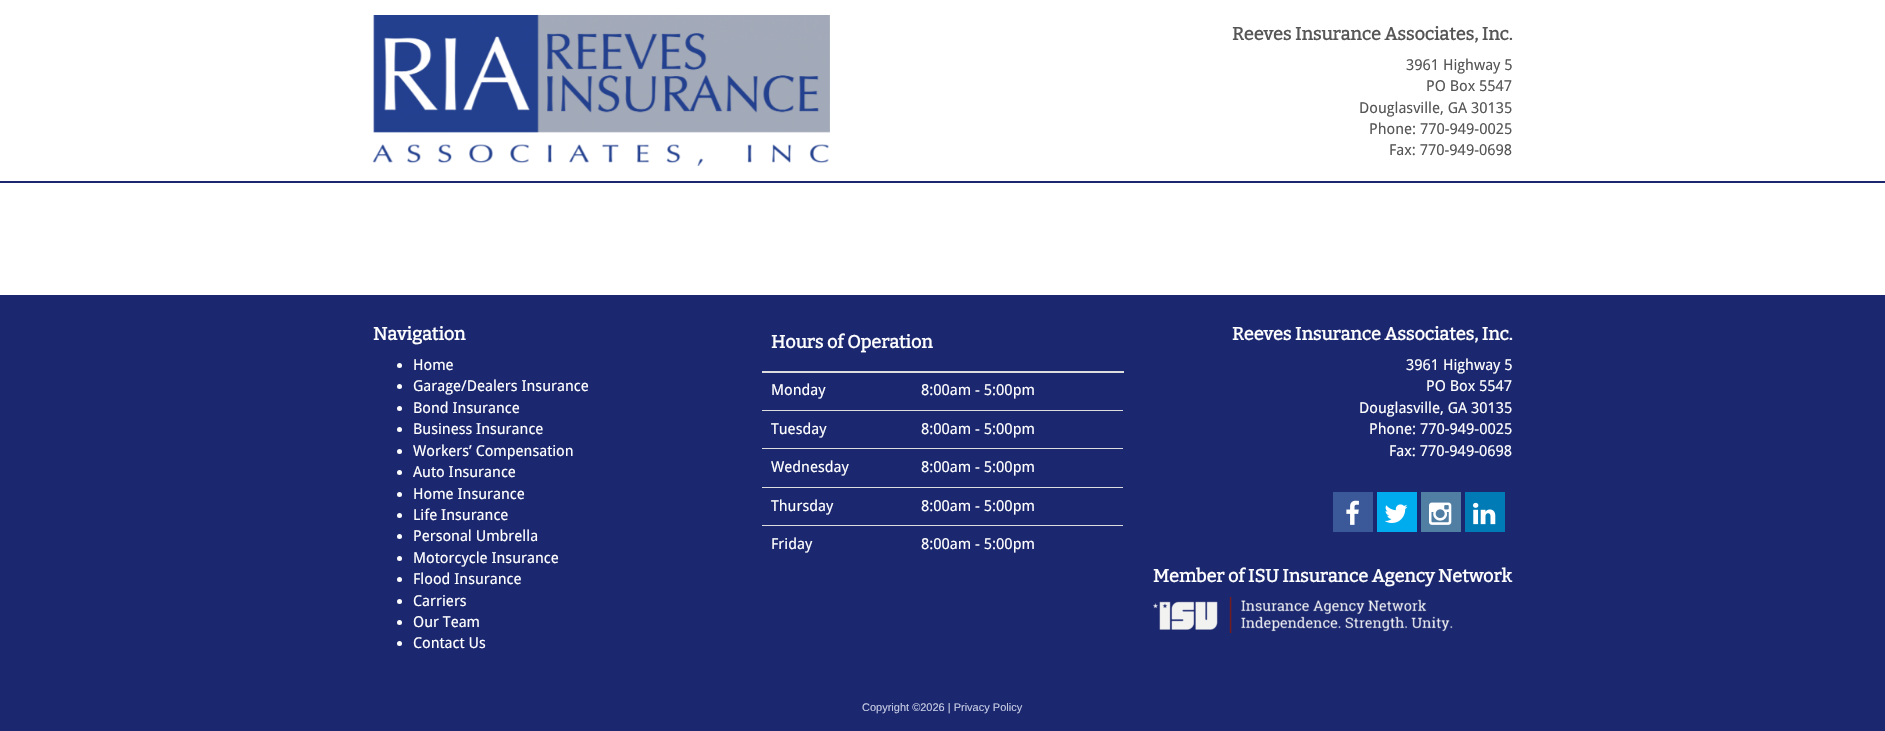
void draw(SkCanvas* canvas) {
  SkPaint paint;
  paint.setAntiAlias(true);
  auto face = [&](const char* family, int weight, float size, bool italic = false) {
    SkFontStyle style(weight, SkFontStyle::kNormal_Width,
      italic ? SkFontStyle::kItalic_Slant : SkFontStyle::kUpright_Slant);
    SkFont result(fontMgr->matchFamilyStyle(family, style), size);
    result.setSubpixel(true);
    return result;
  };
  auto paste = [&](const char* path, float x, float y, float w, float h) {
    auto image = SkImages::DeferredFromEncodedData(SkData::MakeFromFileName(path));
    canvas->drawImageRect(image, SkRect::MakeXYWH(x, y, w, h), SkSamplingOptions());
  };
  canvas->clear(0xffffffff);
  paint.setColor(0xff1b276e);
  canvas->drawRect(SkRect::MakeXYWH(0, 181, 1885, 2), paint);
  paste("img/1.png", 372, 15, 458, 151);
  canvas->drawRect(SkRect::MakeXYWH(0, 295, 1885, 436), paint);
  paint.setColor(0xffffffff);
  canvas->drawCircle(399.5f, 365.5f, 2.5f, paint);
  canvas->drawCircle(399.5f, 386.5f, 2.5f, paint);
  canvas->drawCircle(399.5f, 408.5f, 2.5f, paint);
  canvas->drawCircle(399.5f, 429.5f, 2.5f, paint);
  canvas->drawCircle(399.5f, 451.5f, 2.5f, paint);
  canvas->drawCircle(399.5f, 472.5f, 2.5f, paint);
  canvas->drawCircle(399.5f, 494.5f, 2.5f, paint);
  canvas->drawCircle(399.5f, 515.5f, 2.5f, paint);
  canvas->drawCircle(399.5f, 536.5f, 2.5f, paint);
  canvas->drawCircle(399.5f, 558.5f, 2.5f, paint);
  canvas->drawCircle(399.5f, 579.5f, 2.5f, paint);
  canvas->drawCircle(399.5f, 601.5f, 2.5f, paint);
  canvas->drawCircle(399.5f, 622.5f, 2.5f, paint);
  canvas->drawCircle(399.5f, 643.5f, 2.5f, paint);
  {
    const struct { float x, y, w, h; SkColor color; } items[] = {
      {762, 371, 362, 2, 0xffdddddd},
      {762, 410, 361, 1, 0xffdddddd},
      {762, 448, 361, 1, 0xffdddddd},
      {762, 487, 361, 1, 0xffdddddd},
      {762, 525, 361, 1, 0xffdddddd},
      {1333, 492, 40, 40, 0xff3b5998},
    };
    for (auto [x, y, w, h, color] : items) {
      paint.setColor(color);
      canvas->drawRect(SkRect::MakeXYWH(x, y, w, h), paint);
    }
  }
  paste("img/2.png", 1346, 500, 13, 25);
  paint.setColor(0xff00aced);
  canvas->drawRect(SkRect::MakeXYWH(1377, 492, 40, 40), paint);
  paste("img/3.png", 1384, 504, 24, 19);
  paint.setColor(0xff517fa4);
  canvas->drawRect(SkRect::MakeXYWH(1421, 492, 40, 40), paint);
  paste("img/4.png", 1429, 502, 23, 23);
  paint.setColor(0xff007bb6);
  canvas->drawRect(SkRect::MakeXYWH(1465, 492, 40, 40), paint);
  paste("img/5.png", 1473, 502, 23, 23);
  paste("img/6.png", 1153, 597, 300, 36);
  auto f0 = face("Bitter", 700, 18);
  paint.setColor(0xff565656);
  canvas->drawString("Reeves Insurance Associates, Inc.", 1232, 40, f0, paint);
  auto f1 = face("Droid Sans", 400, 15);
  {
    const struct { const char* s; float x, y; } items[] = {
      {"3961 Highway 5", 1406, 70},
      {"PO Box 5547", 1426, 91},
      {"Douglasville, GA 30135", 1359, 113},
      {"Phone: 770-949-0025", 1369, 134},
      {"Fax: 770-949-0698", 1389, 155},
    };
    for (auto [s, x, y] : items) {
      canvas->drawString(s, x, y, f1, paint);
    }
  }
  paint.setColor(0xffffffff);
  canvas->drawString("Navigation", 373, 340, f0, paint);
  {
    const struct { const char* s; float x, y; } items[] = {
      {"Home", 413, 370},
      {"Garage/Dealers Insurance", 413, 391},
      {"Bond Insurance", 413, 413},
      {"Business Insurance", 413, 434},
      {"Workers’ Compensation", 413, 456},
      {"Auto Insurance", 413, 477},
      {"Home Insurance", 413, 499},
      {"Life Insurance", 413, 520},
      {"Personal Umbrella", 413, 541},
      {"Motorcycle Insurance", 413, 563},
      {"Flood Insurance", 413, 584},
      {"Carriers", 413, 606},
      {"Our Team", 413, 627},
      {"Contact Us", 413, 648},
    };
    for (auto [s, x, y] : items) {
      canvas->drawString(s, x, y, f1, paint);
    }
  }
  canvas->drawString("Hours of Operation", 771, 348, f0, paint);
  {
    const struct { const char* s; float x, y; } items[] = {
      {"Monday", 771, 395},
      {"8:00am - 5:00pm", 921, 395},
      {"Tuesday", 771, 434},
      {"8:00am - 5:00pm", 921, 434},
      {"Wednesday", 771, 472},
      {"8:00am - 5:00pm", 921, 472},
      {"Thursday", 771, 511},
      {"8:00am - 5:00pm", 921, 511},
      {"Friday", 771, 549},
      {"8:00am - 5:00pm", 921, 549},
    };
    for (auto [s, x, y] : items) {
      canvas->drawString(s, x, y, f1, paint);
    }
  }
  canvas->drawString("Reeves Insurance Associates, Inc.", 1232, 340, f0, paint);
  {
    const struct { const char* s; float x, y; } items[] = {
      {"3961 Highway 5", 1406, 370},
      {"PO Box 5547", 1426, 391},
      {"Douglasville, GA 30135", 1359, 413},
      {"Phone: 770-949-0025", 1369, 434},
      {"Fax: 770-949-0698", 1389, 456},
    };
    for (auto [s, x, y] : items) {
      canvas->drawString(s, x, y, f1, paint);
    }
  }
  canvas->drawString("Member of ISU Insurance Agency Network", 1153, 582, f0, paint);
  auto f2 = face("Liberation Sans", 400, 11);
  paint.setColor(0xffc6cbe4);
  canvas->drawString("Copyright ©2026 | Privacy Policy", 862, 711, f2, paint);
}
